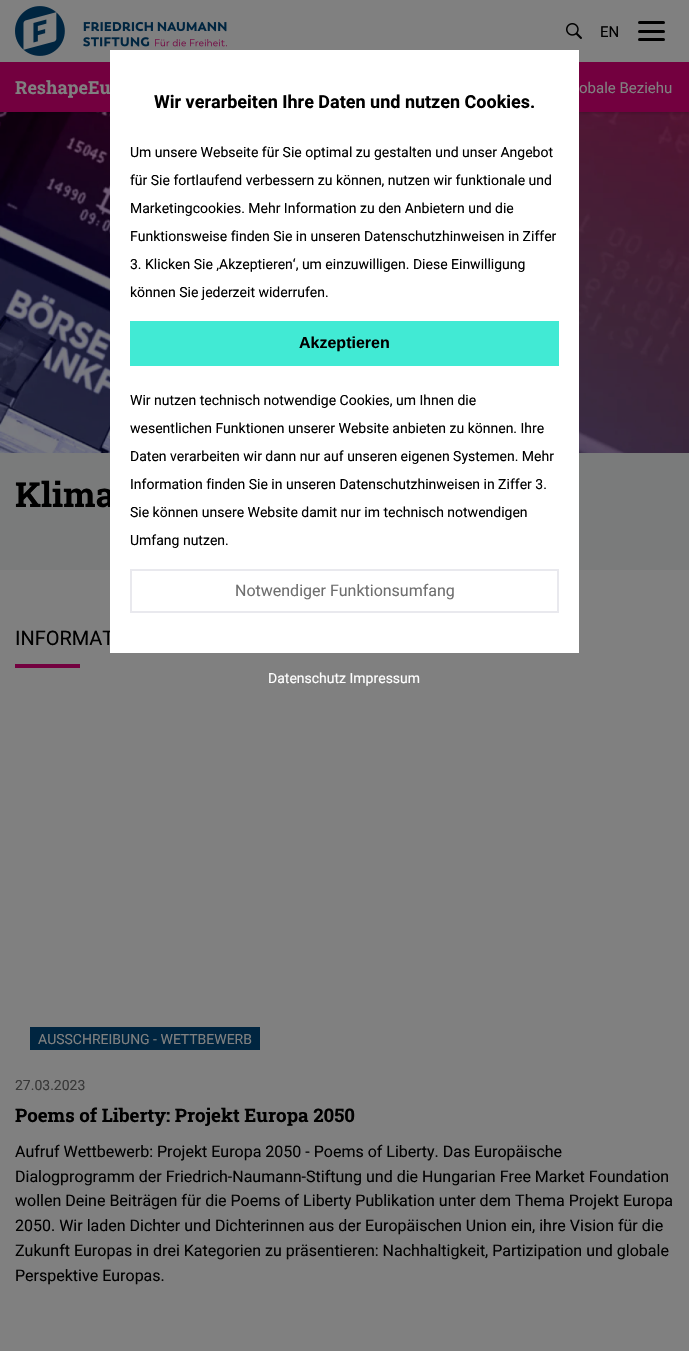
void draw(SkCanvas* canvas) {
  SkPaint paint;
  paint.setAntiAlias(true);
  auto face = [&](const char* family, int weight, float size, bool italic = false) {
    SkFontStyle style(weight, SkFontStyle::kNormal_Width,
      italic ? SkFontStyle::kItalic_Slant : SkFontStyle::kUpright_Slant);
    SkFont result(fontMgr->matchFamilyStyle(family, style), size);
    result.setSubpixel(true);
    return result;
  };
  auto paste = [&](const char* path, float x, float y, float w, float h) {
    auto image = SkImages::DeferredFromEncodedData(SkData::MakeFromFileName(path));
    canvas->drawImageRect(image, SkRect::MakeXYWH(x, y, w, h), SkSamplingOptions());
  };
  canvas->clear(0xff808080);
  paste("img/3.png", 0, 112, 689, 341);
  canvas->save();
  canvas->clipRect(SkRect::MakeXYWH(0, 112, 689, 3));
  paint.setColor(0x33000000);
  paint.setMaskFilter(SkMaskFilter::MakeBlur(kNormal_SkBlurStyle, 1.5f));
  canvas->drawRect(SkRect::MakeXYWH(1, 1, 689, 112), paint);
  paint.setMaskFilter(nullptr);
  canvas->restore();
  paste("img/1.png", 15, 6, 212, 50);
  paste("img/2.png", 566, 23, 16, 16);
  paint.setColor(0xff000000);
  canvas->drawRoundRect(SkRect::MakeXYWH(638, 21, 27, 3), 1.5f, 1.5f, paint);
  canvas->drawRoundRect(SkRect::MakeXYWH(638, 30, 27, 3), 1.5f, 1.5f, paint);
  canvas->drawRoundRect(SkRect::MakeXYWH(638, 38, 27, 3), 1.5f, 1.5f, paint);
  {
    const struct { float x, y, w, h; SkColor color; } items[] = {
      {0, 62, 689, 50, 0xff73003f},
      {0, 453, 689, 117, 0xff7a7b7b},
      {15, 664, 65, 4, 0xff73003f},
      {30, 1027, 230, 23, 0xff002540},
    };
    for (auto [x, y, w, h, color] : items) {
      paint.setColor(color);
      canvas->drawRect(SkRect::MakeXYWH(x, y, w, h), paint);
    }
  }
  auto f0 = face("Roboto", 400, 15);
  paint.setColor(0xff000000);
  canvas->drawString("EN", 600, 37, f0, paint);
  auto f1 = face("Roboto Slab", 700, 18);
  paint.setColor(0xff808080);
  canvas->drawString("ReshapeEu", 15, 94, f1, paint);
  canvas->drawString("obale Beziehu", 579, 93, f0, paint);
  auto f2 = face("Roboto Slab", 700, 34.5f);
  paint.setColor(0xff000000);
  canvas->drawString("Klima", 15, 507, f2, paint);
  auto f3 = face("Roboto", 400, 20);
  canvas->drawString("INFORMAT", 15, 645, f3, paint);
  auto f4 = face("Roboto", 400, 14);
  paint.setColor(0xff808080);
  canvas->drawString("AUSSCHREIBUNG - WETTBEWERB", 38, 1044, f4, paint);
  paint.setColor(0xff383838);
  canvas->drawString("27.03.2023", 15, 1090, f4, paint);
  auto f5 = face("Roboto Slab", 700, 18.75f);
  paint.setColor(0xff000000);
  canvas->drawString("Poems of Liberty: Projekt Europa 2050", 15, 1122, f5, paint);
  auto f6 = face("Roboto", 400, 16);
  {
    const struct { const char* s; float x, y; } items[] = {
      {"Aufruf Wettbewerb: Projekt Europa 2050 - Poems of Liberty. Das Europäische", 15, 1157},
      {"Dialogprogramm der Friedrich-Naumann-Stiftung und die Hungarian Free Market Foundation", 15, 1182},
      {"wollen Deine Beiträgen für die Poems of Liberty Publikation unter dem Thema Projekt Europa", 15, 1206},
      {"2050. Wir laden Dichter und Dichterinnen aus der Europäischen Union ein, ihre Vision für die", 15, 1231},
      {"Zukunft Europas in drei Kategorien zu präsentieren: Nachhaltigkeit, Partizipation und globale", 15, 1256},
      {"Perspektive Europas.", 15, 1281},
    };
    for (auto [s, x, y] : items) {
      canvas->drawString(s, x, y, f6, paint);
    }
  }
  paint.setColor(0xffffffff);
  canvas->drawRect(SkRect::MakeXYWH(110, 50, 469, 603), paint);
  auto f7 = face("Roboto", 700, 18);
  paint.setColor(0xff000000);
  canvas->drawString("Wir verarbeiten Ihre Daten und nutzen Cookies.", 154, 108, f7, paint);
  {
    const struct { const char* s; float x, y; } items[] = {
      {"Um unsere Webseite für Sie optimal zu gestalten und unser Angebot", 130, 157},
      {"für Sie fortlaufend verbessern zu können, nutzen wir funktionale und", 130, 185},
      {"Marketingcookies. Mehr Information zu den Anbietern und die", 130, 213},
      {"Funktionsweise finden Sie in unseren Datenschutzhinweisen in Ziffer", 130, 241},
      {"3. Klicken Sie ‚Akzeptieren‘, um einzuwilligen. Diese Einwilligung", 130, 269},
      {"können Sie jederzeit widerrufen.", 130, 297},
    };
    for (auto [s, x, y] : items) {
      canvas->drawString(s, x, y, f4, paint);
    }
  }
  paint.setColor(0xff41ead4);
  canvas->drawRect(SkRect::MakeXYWH(130, 321, 429, 45), paint);
  auto f8 = face("Liberation Sans", 700, 16);
  paint.setColor(0xff000000);
  canvas->drawString("Akzeptieren", 299, 348, f8, paint);
  {
    const struct { const char* s; float x, y; } items[] = {
      {"Wir nutzen technisch notwendige Cookies, um Ihnen die", 130, 405},
      {"wesentlichen Funktionen unserer Website anbieten zu können. Ihre", 130, 433},
      {"Daten verarbeiten wir dann nur auf unseren eigenen Systemen. Mehr", 130, 461},
      {"Information finden Sie in unseren Datenschutzhinweisen in Ziffer 3.", 130, 489},
      {"Sie können unsere Website damit nur im technisch notwendigen", 130, 517},
      {"Umfang nutzen.", 130, 545},
    };
    for (auto [s, x, y] : items) {
      canvas->drawString(s, x, y, f4, paint);
    }
  }
  paint.setStroke(true);
  paint.setStrokeWidth(2);
  paint.setColor(0xffe9e9ee);
  canvas->drawRect(SkRect::MakeXYWH(131, 570, 427, 42), paint);
  paint.setStroke(false);
  paint.setColor(0xff6f6f6f);
  canvas->drawString("Notwendiger Funktionsumfang", 235, 596, f6, paint);
  paint.setColor(0xffffffff);
  canvas->drawString("Datenschutz Impressum", 268, 683, f4, paint);
}
